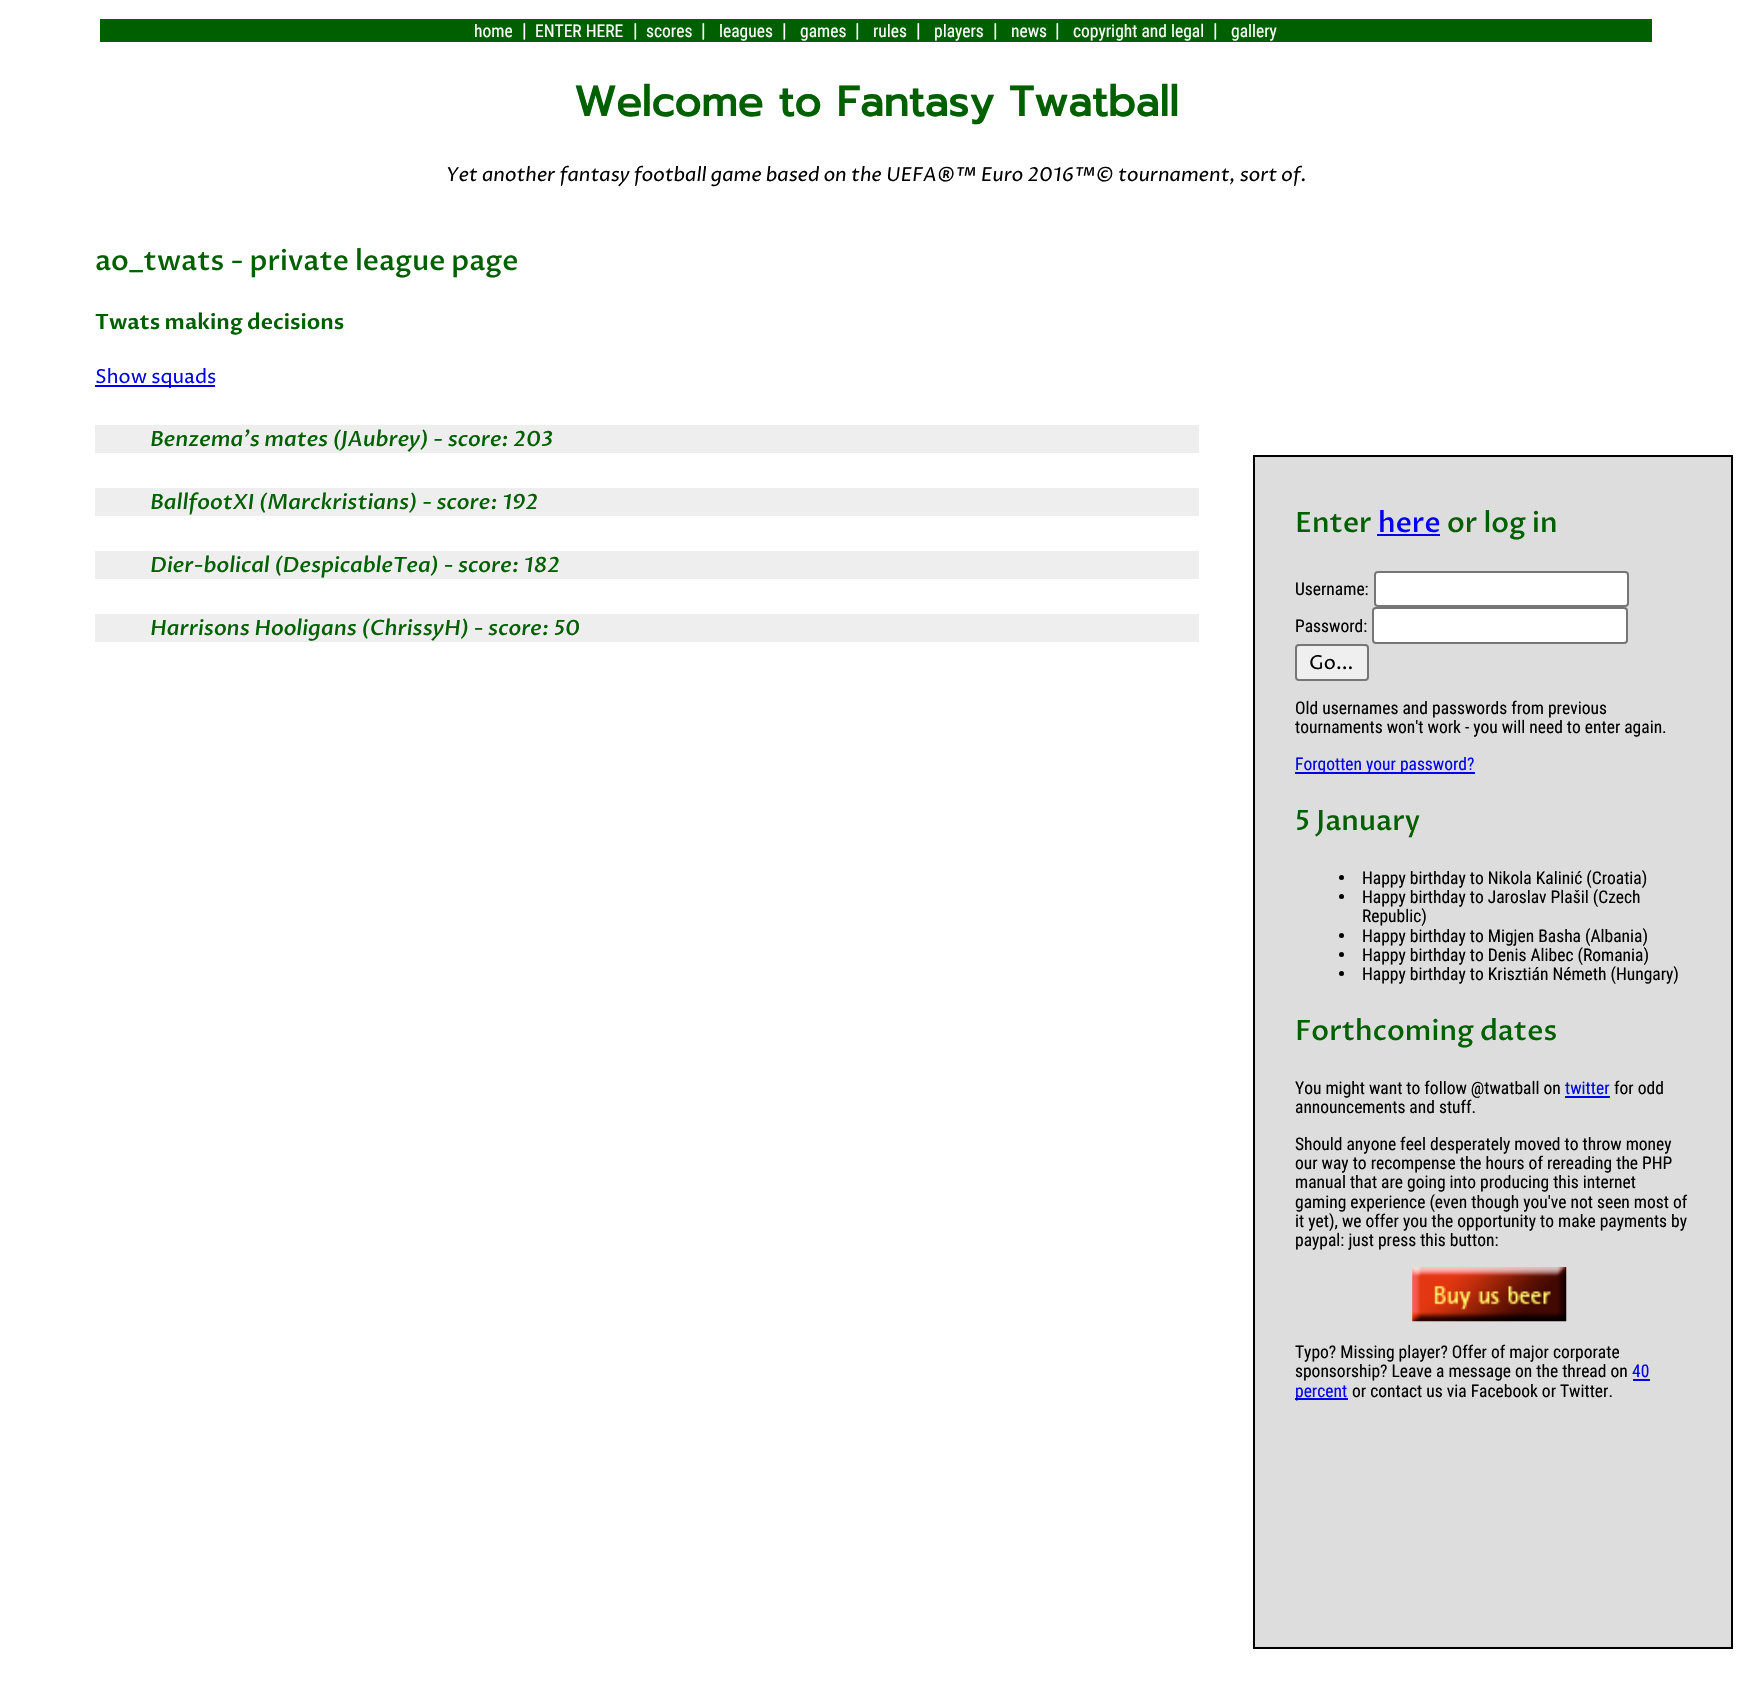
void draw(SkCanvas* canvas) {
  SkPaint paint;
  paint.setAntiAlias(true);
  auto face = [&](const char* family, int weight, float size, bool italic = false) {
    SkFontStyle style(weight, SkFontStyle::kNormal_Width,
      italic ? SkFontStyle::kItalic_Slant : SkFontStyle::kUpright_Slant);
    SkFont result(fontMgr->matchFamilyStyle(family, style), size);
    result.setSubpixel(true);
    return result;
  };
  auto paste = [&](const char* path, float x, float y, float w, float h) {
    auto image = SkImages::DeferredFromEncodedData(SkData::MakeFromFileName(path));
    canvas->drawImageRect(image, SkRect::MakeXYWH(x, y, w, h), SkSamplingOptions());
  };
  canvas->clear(0xffffffff);
  {
    const struct { float x, y, w, h; SkColor color; } items[] = {
      {100, 19, 1552, 23, 0xff006000},
      {95, 385, 120, 2, 0xff0000ee},
      {95, 425, 1104, 28, 0xffeeeeee},
      {95, 488, 1104, 28, 0xffeeeeee},
      {95, 551, 1104, 28, 0xffeeeeee},
      {95, 614, 1104, 28, 0xffeeeeee},
    };
    for (auto [x, y, w, h, color] : items) {
      paint.setColor(color);
      canvas->drawRect(SkRect::MakeXYWH(x, y, w, h), paint);
    }
  }
  paint.setColor(0xffdddddd);
  canvas->drawRect(SkRect::MakeXYWH(1254, 456, 478, 1192), paint);
  paint.setStroke(true);
  paint.setStrokeWidth(2);
  paint.setColor(0xff000000);
  canvas->drawRect(SkRect::MakeXYWH(1254, 456, 478, 1192), paint);
  paint.setStroke(false);
  paint.setColor(0xff0000ee);
  canvas->drawRect(SkRect::MakeXYWH(1377, 534, 63, 2), paint);
  paint.setColor(0xffffffff);
  canvas->drawRoundRect(SkRect::MakeXYWH(1375, 572, 253, 34), 3, 3, paint);
  paint.setStroke(true);
  paint.setColor(0xff767676);
  canvas->drawRoundRect(SkRect::MakeXYWH(1375, 572, 253, 34), 3, 3, paint);
  paint.setStroke(false);
  paint.setColor(0xffffffff);
  canvas->drawRoundRect(SkRect::MakeXYWH(1373, 608, 254, 35), 3, 3, paint);
  paint.setStroke(true);
  paint.setColor(0xff767676);
  canvas->drawRoundRect(SkRect::MakeXYWH(1373, 608, 254, 35), 3, 3, paint);
  paint.setStroke(false);
  paint.setColor(0xffefefef);
  canvas->drawRoundRect(SkRect::MakeXYWH(1296, 645, 72, 35), 3, 3, paint);
  paint.setStroke(true);
  paint.setColor(0xff767676);
  canvas->drawRoundRect(SkRect::MakeXYWH(1296, 645, 72, 35), 3, 3, paint);
  paint.setStroke(false);
  paint.setColor(0xff0000ee);
  canvas->drawRect(SkRect::MakeXYWH(1295, 772, 180, 2), paint);
  paint.setColor(0xff000000);
  canvas->drawCircle(1341.5f, 877.5f, 2.5f, paint);
  canvas->drawCircle(1341.5f, 896.5f, 2.5f, paint);
  canvas->drawCircle(1341.5f, 935.5f, 2.5f, paint);
  canvas->drawCircle(1341.5f, 954.5f, 2.5f, paint);
  canvas->drawCircle(1341.5f, 973.5f, 2.5f, paint);
  paint.setColor(0xff0000ee);
  canvas->drawRect(SkRect::MakeXYWH(1565, 1096, 45, 2), paint);
  paste("img/1.png", 1412, 1267, 155, 55);
  canvas->drawRect(SkRect::MakeXYWH(1633, 1379, 17, 2), paint);
  canvas->drawRect(SkRect::MakeXYWH(1295, 1398, 53, 2), paint);
  auto f0 = face("Roboto Condensed", 400, 17.5f);
  paint.setColor(0xffffffff);
  canvas->drawString("home", 474, 37, f0, paint);
  auto f1 = face("Roboto Condensed", 400, 19.25f);
  canvas->drawString("|", 522, 37, f1, paint);
  canvas->drawString("ENTER HERE", 535, 37, f0, paint);
  canvas->drawString("|", 633, 37, f1, paint);
  canvas->drawString("scores", 646, 37, f0, paint);
  canvas->drawString("|", 701, 37, f1, paint);
  canvas->drawString("leagues", 719, 37, f0, paint);
  canvas->drawString("|", 782, 37, f1, paint);
  canvas->drawString("games", 800, 37, f0, paint);
  canvas->drawString("|", 855, 37, f1, paint);
  canvas->drawString("rules", 873, 37, f0, paint);
  canvas->drawString("|", 916, 37, f1, paint);
  canvas->drawString("players", 934, 37, f0, paint);
  canvas->drawString("|", 993, 37, f1, paint);
  canvas->drawString("news", 1011, 37, f0, paint);
  canvas->drawString("|", 1055, 37, f1, paint);
  canvas->drawString("copyright and legal", 1073, 37, f0, paint);
  canvas->drawString("|", 1213, 37, f1, paint);
  canvas->drawString("gallery", 1231, 37, f0, paint);
  auto f2 = face("Prompt", 700, 42);
  paint.setColor(0xff006000);
  canvas->drawString("Welcome to Fantasy Twatball", 574, 116, f2, paint);
  auto f3 = face("Proza Libre", 400, 19.25f, true);
  paint.setColor(0xff000000);
  canvas->drawString("Yet another fantasy football game based on the UEFA®™ Euro 2016™© tournament, sort of.", 446, 181, f3, paint);
  auto f4 = face("Proza Libre", 500, 28);
  paint.setColor(0xff006000);
  canvas->drawString("ao_twats - private league page", 95, 270, f4, paint);
  auto f5 = face("Proza Libre", 600, 21);
  canvas->drawString("Twats making decisions", 95, 329, f5, paint);
  auto f6 = face("Proza Libre", 400, 19.25f);
  paint.setColor(0xff0000ee);
  canvas->drawString("Show squads", 95, 383, f6, paint);
  auto f7 = face("Proza Libre", 500, 21, true);
  paint.setColor(0xff006000);
  {
    const struct { const char* s; float x, y; } items[] = {
      {"Benzema's mates (JAubrey) - score: 203", 150, 446},
      {"BallfootXI (Marckristians) - score: 192", 150, 509},
      {"Dier-bolical (DespicableTea) - score: 182", 150, 572},
      {"Harrisons Hooligans (ChrissyH) - score: 50", 150, 635},
    };
    for (auto [s, x, y] : items) {
      canvas->drawString(s, x, y, f7, paint);
    }
  }
  canvas->drawString("Enter", 1295, 532, f4, paint);
  paint.setColor(0xff0000ee);
  canvas->drawString("here", 1378, 532, f4, paint);
  paint.setColor(0xff006000);
  canvas->drawString("or log in", 1447, 532, f4, paint);
  paint.setColor(0xff000000);
  canvas->drawString("Username:", 1295, 595, f0, paint);
  canvas->drawString("Password:", 1295, 632, f0, paint);
  canvas->drawString("Go...", 1309, 669, f6, paint);
  canvas->drawString("Old usernames and passwords from previous", 1295, 714, f0, paint);
  canvas->drawString("tournaments won't work - you will need to enter again.", 1295, 733, f0, paint);
  paint.setColor(0xff0000ee);
  canvas->drawString("Forgotten your password?", 1295, 770, f0, paint);
  paint.setColor(0xff006000);
  canvas->drawString("5 January", 1295, 830, f4, paint);
  paint.setColor(0xff000000);
  {
    const struct { const char* s; float x, y; } items[] = {
      {"Happy birthday to Nikola Kalinić (Croatia)", 1362, 884},
      {"Happy birthday to Jaroslav Plašil (Czech", 1362, 903},
      {"Republic)", 1362, 922},
      {"Happy birthday to Migjen Basha (Albania)", 1362, 942},
      {"Happy birthday to Denis Alibec (Romania)", 1362, 961},
      {"Happy birthday to Krisztián Németh (Hungary)", 1362, 980},
    };
    for (auto [s, x, y] : items) {
      canvas->drawString(s, x, y, f0, paint);
    }
  }
  paint.setColor(0xff006000);
  canvas->drawString("Forthcoming dates", 1295, 1040, f4, paint);
  paint.setColor(0xff000000);
  canvas->drawString("You might want to follow @twatball on", 1295, 1094, f0, paint);
  paint.setColor(0xff0000ee);
  canvas->drawString("twitter", 1565, 1094, f0, paint);
  paint.setColor(0xff000000);
  {
    const struct { const char* s; float x, y; } items[] = {
      {"for odd", 1614, 1094},
      {"announcements and stuff.", 1295, 1113},
      {"Should anyone feel desperately moved to throw money", 1295, 1150},
      {"our way to recompense the hours of rereading the PHP", 1295, 1169},
      {"manual that are going into producing this internet", 1295, 1188},
      {"gaming experience (even though you've not seen most of", 1295, 1208},
      {"it yet), we offer you the opportunity to make payments by", 1295, 1227},
      {"paypal: just press this button:", 1295, 1246},
      {"Typo? Missing player? Offer of major corporate", 1295, 1358},
      {"sponsorship? Leave a message on the thread on", 1295, 1377},
    };
    for (auto [s, x, y] : items) {
      canvas->drawString(s, x, y, f0, paint);
    }
  }
  paint.setColor(0xff0000ee);
  canvas->drawString("40", 1632, 1377, f0, paint);
  canvas->drawString("percent", 1295, 1397, f0, paint);
  paint.setColor(0xff000000);
  canvas->drawString("or contact us via Facebook or Twitter.", 1352, 1397, f0, paint);
}
